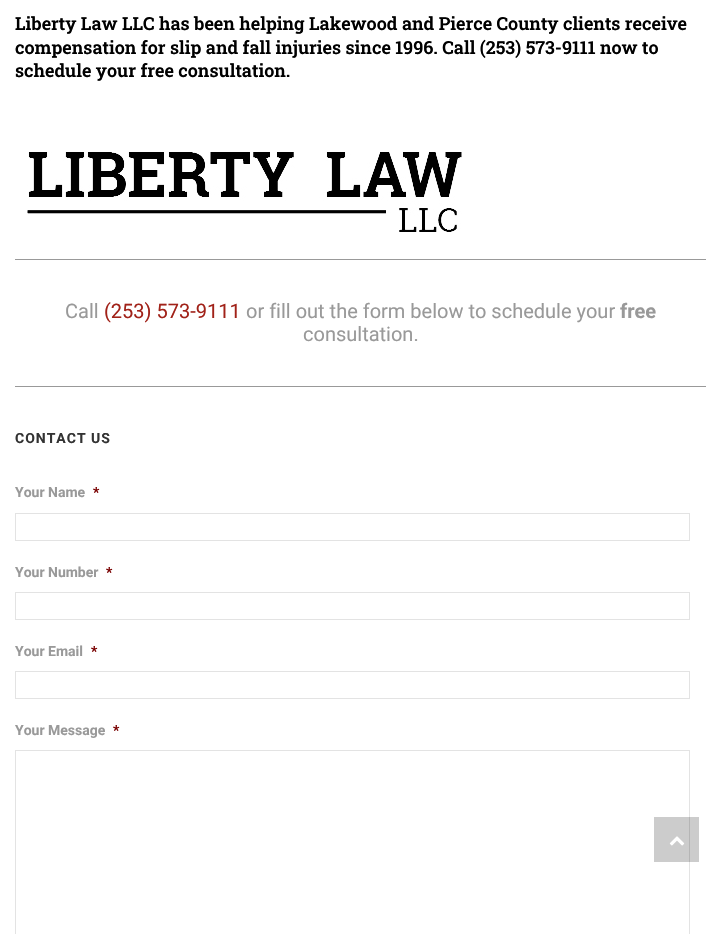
void draw(SkCanvas* canvas) {
  SkPaint paint;
  paint.setAntiAlias(true);
  auto face = [&](const char* family, int weight, float size, bool italic = false) {
    SkFontStyle style(weight, SkFontStyle::kNormal_Width,
      italic ? SkFontStyle::kItalic_Slant : SkFontStyle::kUpright_Slant);
    SkFont result(fontMgr->matchFamilyStyle(family, style), size);
    result.setSubpixel(true);
    return result;
  };
  auto writeSpaced = [&](const char* s, float x, float y, const SkFont& font, const SkPaint& ink, float letter, float word) {
    std::vector<SkGlyphID> glyphs(font.countText(s, strlen(s), SkTextEncoding::kUTF8));
    std::vector<float> xs(glyphs.size());
    font.textToGlyphs(s, strlen(s), SkTextEncoding::kUTF8, glyphs);
    font.getXPos(glyphs, xs, x);
    float extra = 0;
    for (size_t i = 0; i < glyphs.size(); i++) {
      xs[i] += extra;
      extra += letter + word * (glyphs[i] == font.unicharToGlyph(' '));
    }
    canvas->drawTextBlob(SkTextBlob::MakeFromPosHGlyphs(glyphs, xs, y, font), 0, 0, ink);
  };
  auto paste = [&](const char* path, float x, float y, float w, float h) {
    auto image = SkImages::DeferredFromEncodedData(SkData::MakeFromFileName(path));
    canvas->drawImageRect(image, SkRect::MakeXYWH(x, y, w, h), SkSamplingOptions());
  };
  canvas->clear(0xffffffff);
  paste("img/1.png", 27, 152, 435, 80);
  paint.setColor(0xff999999);
  canvas->drawRect(SkRect::MakeXYWH(15, 259, 691, 1), paint);
  canvas->drawRect(SkRect::MakeXYWH(15, 386, 691, 1), paint);
  paint.setStroke(true);
  paint.setStrokeWidth(1);
  paint.setColor(0xffe3e3e3);
  canvas->drawRect(SkRect::MakeXYWH(15.5f, 513.5f, 674, 27), paint);
  canvas->drawRect(SkRect::MakeXYWH(15.5f, 592.5f, 674, 27), paint);
  canvas->drawRect(SkRect::MakeXYWH(15.5f, 671.5f, 674, 27), paint);
  canvas->drawRect(SkRect::MakeXYWH(15.5f, 750.5f, 674, 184), paint);
  paint.setStroke(false);
  paint.setColor(0x33000000);
  canvas->drawRect(SkRect::MakeXYWH(654, 817, 45, 45), paint);
  paste("img/2.png", 669, 836, 16, 10);
  auto f0 = face("Roboto Slab", 600, 18);
  paint.setColor(0xff000000);
  {
    const struct { const char* s; float x, y; } items[] = {
      {"Liberty Law LLC has been helping Lakewood and Pierce County clients receive", 15, 30},
      {"compensation for slip and fall injuries since 1996. Call (253) 573-9111 now to", 15, 54},
      {"schedule your free consultation.", 15, 77},
    };
    for (auto [s, x, y] : items) {
      canvas->drawString(s, x, y, f0, paint);
    }
  }
  auto f1 = face("Roboto", 400, 20);
  paint.setColor(0xff999999);
  canvas->drawString("Call", 65, 318, f1, paint);
  paint.setColor(0xffa12219);
  canvas->drawString("(253) 573-9111", 104, 318, f1, paint);
  paint.setColor(0xff999999);
  canvas->drawString("or fill out the form below to schedule your", 246, 318, f1, paint);
  auto f2 = face("Roboto", 700, 20);
  canvas->drawString("free", 620, 318, f2, paint);
  canvas->drawString("consultation.", 303, 341, f1, paint);
  auto f3 = face("Roboto", 700, 14);
  paint.setColor(0xff333333);
  writeSpaced("CONTACT US", 15, 443, f3, paint, 1, 0);
  paint.setColor(0xff999999);
  canvas->drawString("Your Name", 15, 497, f3, paint);
  paint.setColor(0xff790000);
  canvas->drawString("*", 93, 497, f3, paint);
  paint.setColor(0xff999999);
  canvas->drawString("Your Number", 15, 577, f3, paint);
  paint.setColor(0xff790000);
  canvas->drawString("*", 106, 577, f3, paint);
  paint.setColor(0xff999999);
  canvas->drawString("Your Email", 15, 656, f3, paint);
  paint.setColor(0xff790000);
  canvas->drawString("*", 91, 656, f3, paint);
  paint.setColor(0xff999999);
  canvas->drawString("Your Message", 15, 735, f3, paint);
  paint.setColor(0xff790000);
  canvas->drawString("*", 113, 735, f3, paint);
}
